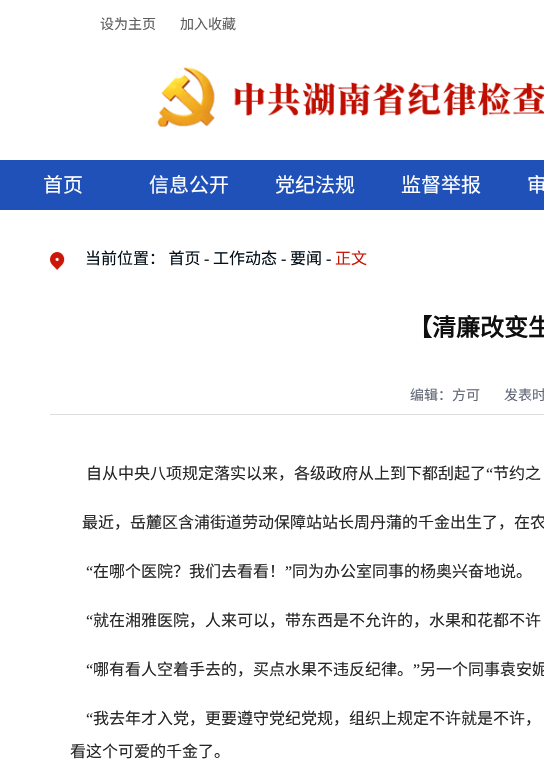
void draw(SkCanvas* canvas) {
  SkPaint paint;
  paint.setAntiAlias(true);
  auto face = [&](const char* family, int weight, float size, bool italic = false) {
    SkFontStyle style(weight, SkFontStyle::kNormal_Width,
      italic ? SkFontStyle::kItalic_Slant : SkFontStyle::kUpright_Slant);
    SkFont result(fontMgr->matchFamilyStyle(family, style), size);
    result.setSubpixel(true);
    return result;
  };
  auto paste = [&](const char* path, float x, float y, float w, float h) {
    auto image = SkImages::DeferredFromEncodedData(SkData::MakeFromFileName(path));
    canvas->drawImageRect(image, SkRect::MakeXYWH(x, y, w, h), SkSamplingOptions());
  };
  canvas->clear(0xffffffff);
  paste("img/1.png", 157, 66, 387, 61);
  paint.setColor(0xff1f51b9);
  canvas->drawRect(SkRect::MakeXYWH(0, 160, 544, 50), paint);
  paste("img/2.png", 50, 252, 15, 18);
  paint.setColor(0xffdddddd);
  canvas->drawRect(SkRect::MakeXYWH(50, 414, 494, 1), paint);
  auto f0 = face("Noto Sans CJK SC", 400, 14);
  paint.setColor(0xff5e5e5e);
  canvas->drawString("设为主页", 100, 29, f0, paint);
  canvas->drawString("加入收藏", 180, 29, f0, paint);
  auto f1 = face("Noto Sans CJK SC", 400, 20);
  paint.setColor(0xffffffff);
  {
    const struct { const char* s; float x, y; } items[] = {
      {"首页", 43, 192},
      {"信息公开", 149, 192},
      {"党纪法规", 275, 192},
      {"监督举报", 401, 192},
      {"审", 527, 192},
    };
    for (auto [s, x, y] : items) {
      canvas->drawString(s, x, y, f1, paint);
    }
  }
  auto f2 = face("Noto Sans CJK SC", 400, 16);
  paint.setColor(0xff03101a);
  canvas->drawString("当前位置： 首页", 85, 264, f2, paint);
  auto f3 = face("Liberation Serif", 400, 16);
  canvas->drawString("-", 204, 264, f3, paint);
  canvas->drawString("工作动态", 213, 264, f2, paint);
  canvas->drawString("-", 281, 264, f3, paint);
  canvas->drawString("要闻", 290, 264, f2, paint);
  canvas->drawString("-", 326, 264, f3, paint);
  paint.setColor(0xffcb1608);
  canvas->drawString("正文", 335, 264, f2, paint);
  auto f4 = face("Noto Sans CJK SC", 700, 24);
  paint.setColor(0xff0f0f10);
  canvas->drawString("【清廉改变生", 408, 336, f4, paint);
  paint.setColor(0xff616977);
  canvas->drawString("编辑：方可", 410, 400, f0, paint);
  canvas->drawString("发表时", 504, 400, f0, paint);
  paint.setColor(0xff262626);
  canvas->drawString("自从中央八项规定落实以来，各级政府从上到下都刮起了", 86, 479, f2, paint);
  canvas->drawString("“", 486, 479, f3, paint);
  canvas->drawString("节约之", 493, 479, f2, paint);
  canvas->drawString("最近，岳麓区含浦街道劳动保障站站长周丹蒲的千金出生了，在农", 82, 528, f2, paint);
  canvas->drawString("“", 86, 577, f3, paint);
  canvas->drawString("在哪个医院？我们去看看！", 93, 577, f2, paint);
  canvas->drawString("”", 285, 577, f3, paint);
  canvas->drawString("同为办公室同事的杨奥兴奋地说。", 292, 577, f2, paint);
  canvas->drawString("“", 86, 626, f3, paint);
  canvas->drawString("就在湘雅医院，人来可以，带东西是不允许的，水果和花都不许", 93, 626, f2, paint);
  canvas->drawString("“", 86, 675, f3, paint);
  canvas->drawString("哪有看人空着手去的，买点水果不违反纪律。", 93, 675, f2, paint);
  canvas->drawString("”", 413, 675, f3, paint);
  canvas->drawString("另一个同事袁安妮", 420, 675, f2, paint);
  canvas->drawString("“", 86, 724, f3, paint);
  canvas->drawString("我去年才入党，更要遵守党纪党规，组织上规定不许就是不许，", 93, 724, f2, paint);
  canvas->drawString("看这个可爱的千金了。", 70, 757, f2, paint);
}
